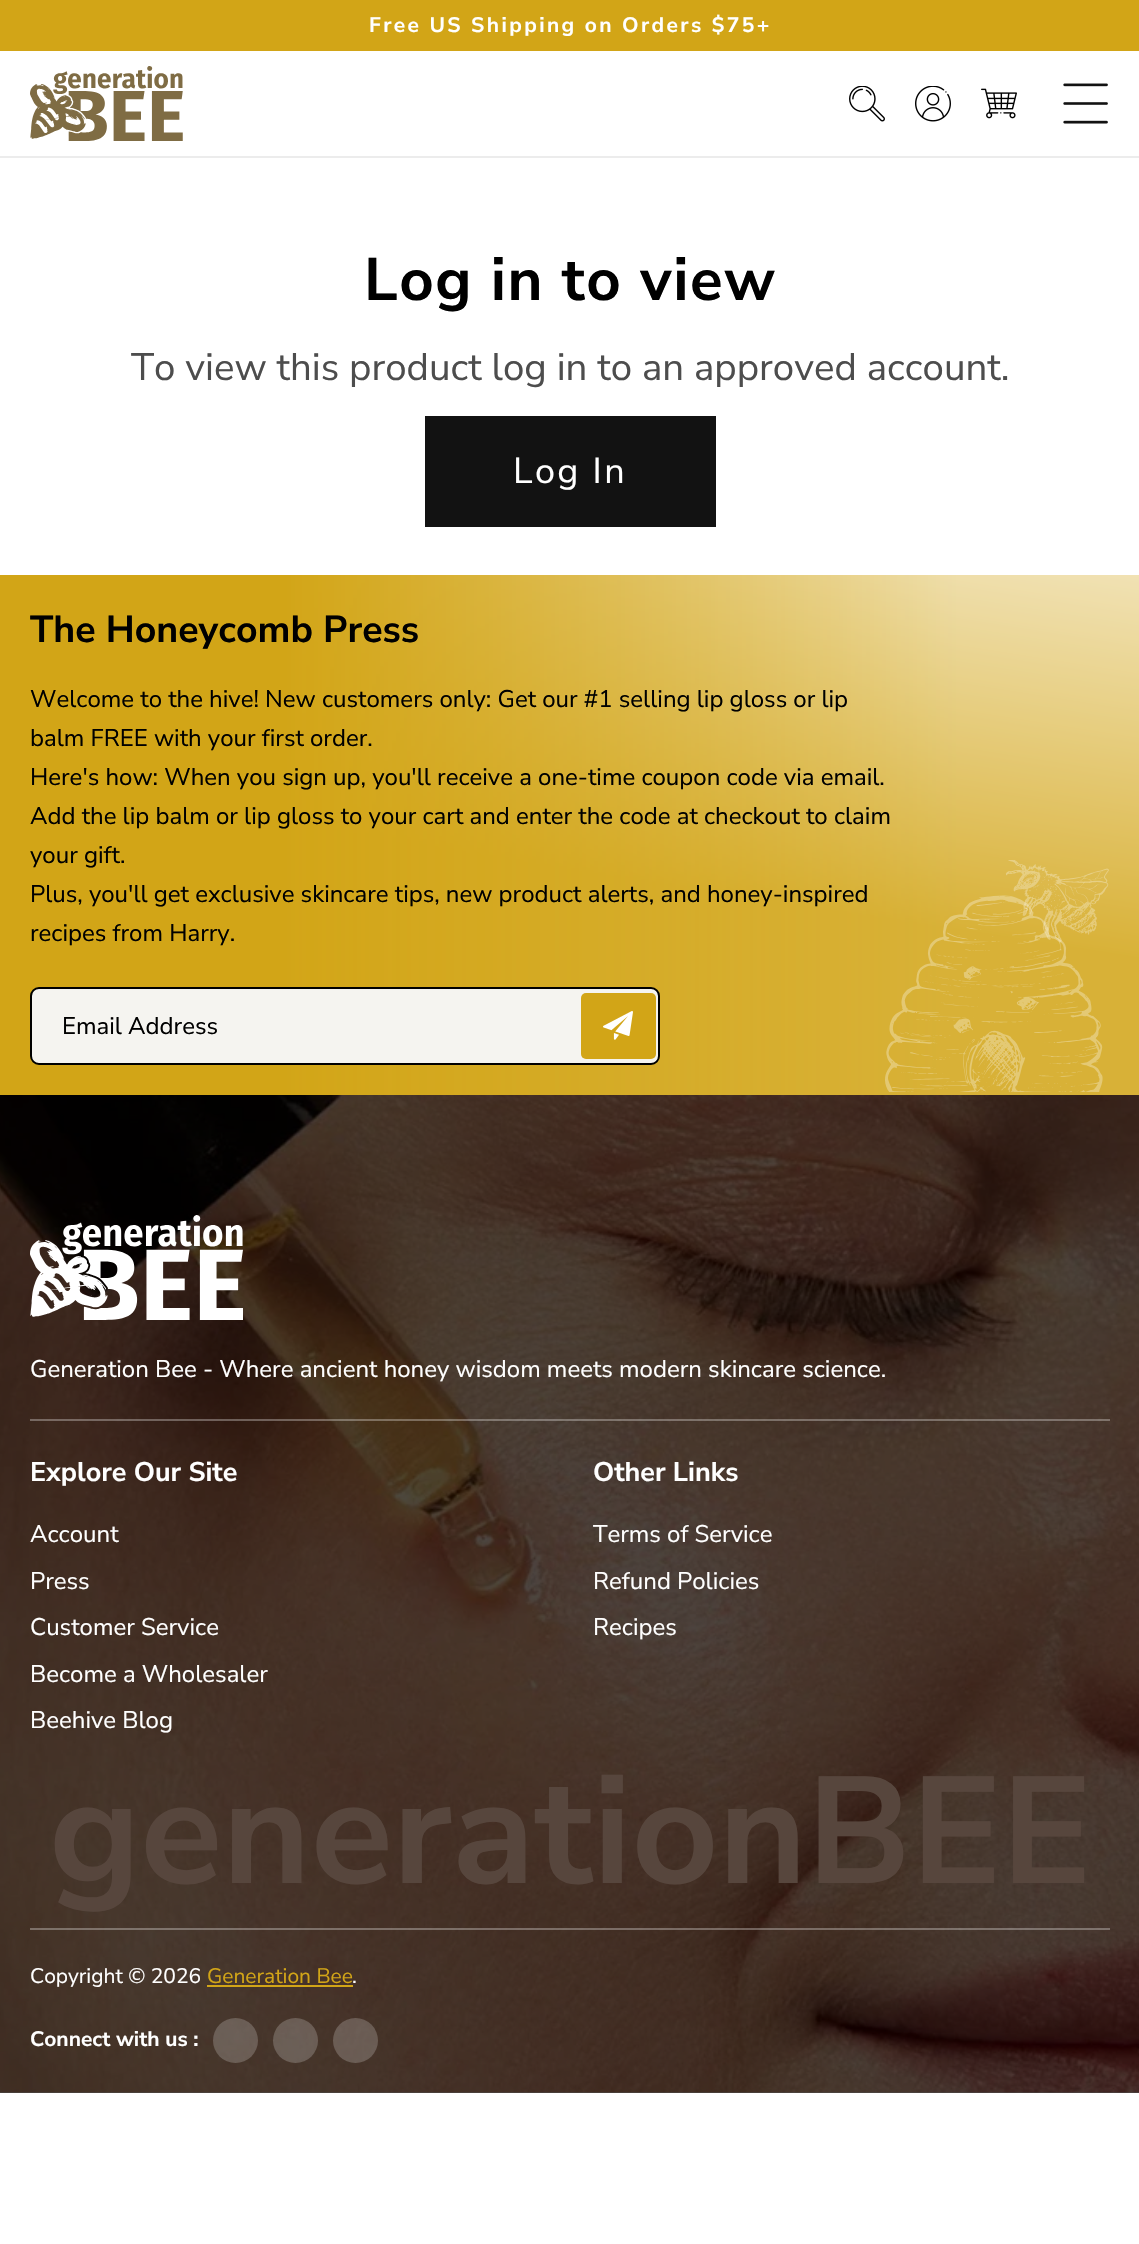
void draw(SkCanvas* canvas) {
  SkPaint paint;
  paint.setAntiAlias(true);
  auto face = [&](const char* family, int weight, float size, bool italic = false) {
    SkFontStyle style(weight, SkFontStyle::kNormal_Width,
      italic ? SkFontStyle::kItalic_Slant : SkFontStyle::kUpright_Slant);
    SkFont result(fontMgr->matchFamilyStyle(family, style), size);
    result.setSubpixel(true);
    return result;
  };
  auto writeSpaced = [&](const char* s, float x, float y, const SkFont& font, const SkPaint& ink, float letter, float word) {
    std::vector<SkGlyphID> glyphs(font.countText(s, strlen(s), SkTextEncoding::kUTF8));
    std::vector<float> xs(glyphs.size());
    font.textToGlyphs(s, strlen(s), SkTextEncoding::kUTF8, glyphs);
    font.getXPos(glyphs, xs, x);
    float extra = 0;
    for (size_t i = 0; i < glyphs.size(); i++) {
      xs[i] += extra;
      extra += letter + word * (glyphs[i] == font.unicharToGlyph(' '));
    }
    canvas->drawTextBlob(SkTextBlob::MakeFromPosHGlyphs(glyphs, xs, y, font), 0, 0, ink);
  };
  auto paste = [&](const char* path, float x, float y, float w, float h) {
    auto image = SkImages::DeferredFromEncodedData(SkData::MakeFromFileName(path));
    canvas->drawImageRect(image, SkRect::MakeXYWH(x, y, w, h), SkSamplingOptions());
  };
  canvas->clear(0xffffffff);
  {
    const struct { float x, y, w, h; SkColor color; } items[] = {
      {0, 2092, 1139, 1, 0xff4d4d4d},
      {0, 0, 1139, 51, 0xffd2a517},
      {0, 156, 1139, 2, 0xffececec},
    };
    for (auto [x, y, w, h, color] : items) {
      paint.setColor(color);
      canvas->drawRect(SkRect::MakeXYWH(x, y, w, h), paint);
    }
  }
  paste("img/1.png", 30, 66, 153, 75);
  paste("img/2.png", 849, 86, 36, 36);
  paste("img/3.png", 915, 86, 36, 36);
  paste("img/4.png", 981, 88, 36, 31);
  paste("img/5.png", 1063, 83, 45, 41);
  paint.setColor(0xff121212);
  canvas->drawRect(SkRect::MakeXYWH(425, 416, 291, 111), paint);
  {
    const SkColor colors[] = {0xffdbb746, 0xffffffff};
    const float stops[] = {0.45f, 1};
    const SkPoint ends[] = {{516, 1177}, {624, 493}};
    paint.setShader(SkGradientShader::MakeLinear(ends, colors, stops, 2, SkTileMode::kClamp));
    paint.setAlpha(255);
  }
  canvas->drawRect(SkRect::MakeXYWH(291, 575, 848, 520), paint);
  {
    const SkColor colors[] = {0x52d2a517, 0xffd2a517};
    const float stops[] = {0.16f, 0.75f};
    const SkPoint ends[] = {{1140, 835}, {0, 835}};
    paint.setShader(SkGradientShader::MakeLinear(ends, colors, stops, 2, SkTileMode::kClamp));
    paint.setAlpha(255);
  }
  canvas->drawRect(SkRect::MakeXYWH(0, 575, 1139, 520), paint);
  paint.setShader(nullptr);
  paint.setColor(0xfff5f4f0);
  canvas->drawRoundRect(SkRect::MakeXYWH(31, 988, 628, 76), 8, 8, paint);
  paint.setStroke(true);
  paint.setStrokeWidth(2);
  paint.setColor(0xff000000);
  canvas->drawRoundRect(SkRect::MakeXYWH(31, 988, 628, 76), 8, 8, paint);
  paint.setStroke(false);
  paint.setColor(0xffd2a517);
  canvas->drawRoundRect(SkRect::MakeXYWH(581, 993, 75, 66), 5, 5, paint);
  paste("img/6.png", 603, 1011, 30, 29);
  paste("img/7.png", 885, 860, 224, 232);
  paste("img/8.png", 0, 1095, 1139, 998);
  paint.setColor(0x4dffffff);
  canvas->drawRect(SkRect::MakeXYWH(30, 1419, 1080, 2), paint);
  paste("img/9.png", 30, 1215, 213, 105);
  canvas->drawRect(SkRect::MakeXYWH(30, 1928, 1080, 2), paint);
  paint.setColor(0xffd2a517);
  canvas->drawRect(SkRect::MakeXYWH(207, 1985, 146, 2), paint);
  paint.setColor(0x33ffffff);
  canvas->drawCircle(235.5f, 2040.5f, 22.5f, paint);
  canvas->drawCircle(295.5f, 2040.5f, 22.5f, paint);
  canvas->drawCircle(355.5f, 2040.5f, 22.5f, paint);
  auto f0 = face("Nunito Sans", 700, 21);
  paint.setColor(0xffffffff);
  writeSpaced("Free US Shipping on Orders $75+", 369, 32, f0, paint, 2.4f, 0);
  auto f1 = face("Nunito Sans", 700, 60);
  paint.setColor(0xff000000);
  writeSpaced("Log in to view", 364, 300, f1, paint, 1.5f, 0);
  auto f2 = face("Nunito Sans", 400, 38.4f);
  paint.setColor(0xff4d4d4d);
  canvas->drawString("To view this product log in to an approved account.", 131, 380, f2, paint);
  auto f3 = face("Nunito Sans", 400, 36);
  paint.setColor(0xffffffff);
  writeSpaced("Log In", 513, 483, f3, paint, 2.4f, 0);
  auto f4 = face("Nunito Sans", 700, 37.5f);
  paint.setColor(0xff000000);
  canvas->drawString("The Honeycomb Press", 30, 642, f4, paint);
  auto f5 = face("Nunito Sans", 400, 24);
  {
    const struct { const char* s; float x, y; } items[] = {
      {"Welcome to the hive! New customers only: Get our #1 selling lip gloss or lip", 30, 707},
      {"balm FREE with your first order.", 30, 746},
      {"Here's how: When you sign up, you'll receive a one-time coupon code via email.", 30, 785},
      {"Add the lip balm or lip gloss to your cart and enter the code at checkout to claim", 30, 824},
      {"your gift.", 30, 863},
      {"Plus, you'll get exclusive skincare tips, new product alerts, and honey-inspired", 30, 902},
      {"recipes from Harry.", 30, 941},
      {"Email Address", 62, 1034},
    };
    for (auto [s, x, y] : items) {
      canvas->drawString(s, x, y, f5, paint);
    }
  }
  paint.setColor(0xffffffff);
  canvas->drawString("Generation Bee - Where ancient honey wisdom meets modern skincare science.", 30, 1377, f5, paint);
  auto f6 = face("Nunito Sans", 700, 27);
  canvas->drawString("Explore Our Site", 30, 1481, f6, paint);
  {
    const struct { const char* s; float x, y; } items[] = {
      {"Account", 30, 1542},
      {"Press", 30, 1589},
      {"Customer Service", 30, 1635},
      {"Become a Wholesaler", 30, 1682},
      {"Beehive Blog", 30, 1728},
    };
    for (auto [s, x, y] : items) {
      canvas->drawString(s, x, y, f5, paint);
    }
  }
  canvas->drawString("Other Links", 593, 1481, f6, paint);
  {
    const struct { const char* s; float x, y; } items[] = {
      {"Terms of Service", 593, 1542},
      {"Refund Policies", 593, 1589},
      {"Recipes", 593, 1635},
    };
    for (auto [s, x, y] : items) {
      canvas->drawString(s, x, y, f5, paint);
    }
  }
  auto f7 = face("Nunito Sans", 700, 151.25f);
  paint.setColor(0xff57463d);
  canvas->drawString("generationBEE", 49, 1883, f7, paint);
  auto f8 = face("Nunito Sans", 400, 21);
  paint.setColor(0xffffffff);
  canvas->drawString("Copyright © 2026", 30, 1983, f8, paint);
  paint.setColor(0xffd2a517);
  canvas->drawString("Generation Bee", 207, 1983, f8, paint);
  paint.setColor(0xffffffff);
  canvas->drawString(".", 352, 1983, f8, paint);
  canvas->drawString("Connect with us :", 30, 2046, f0, paint);
}
